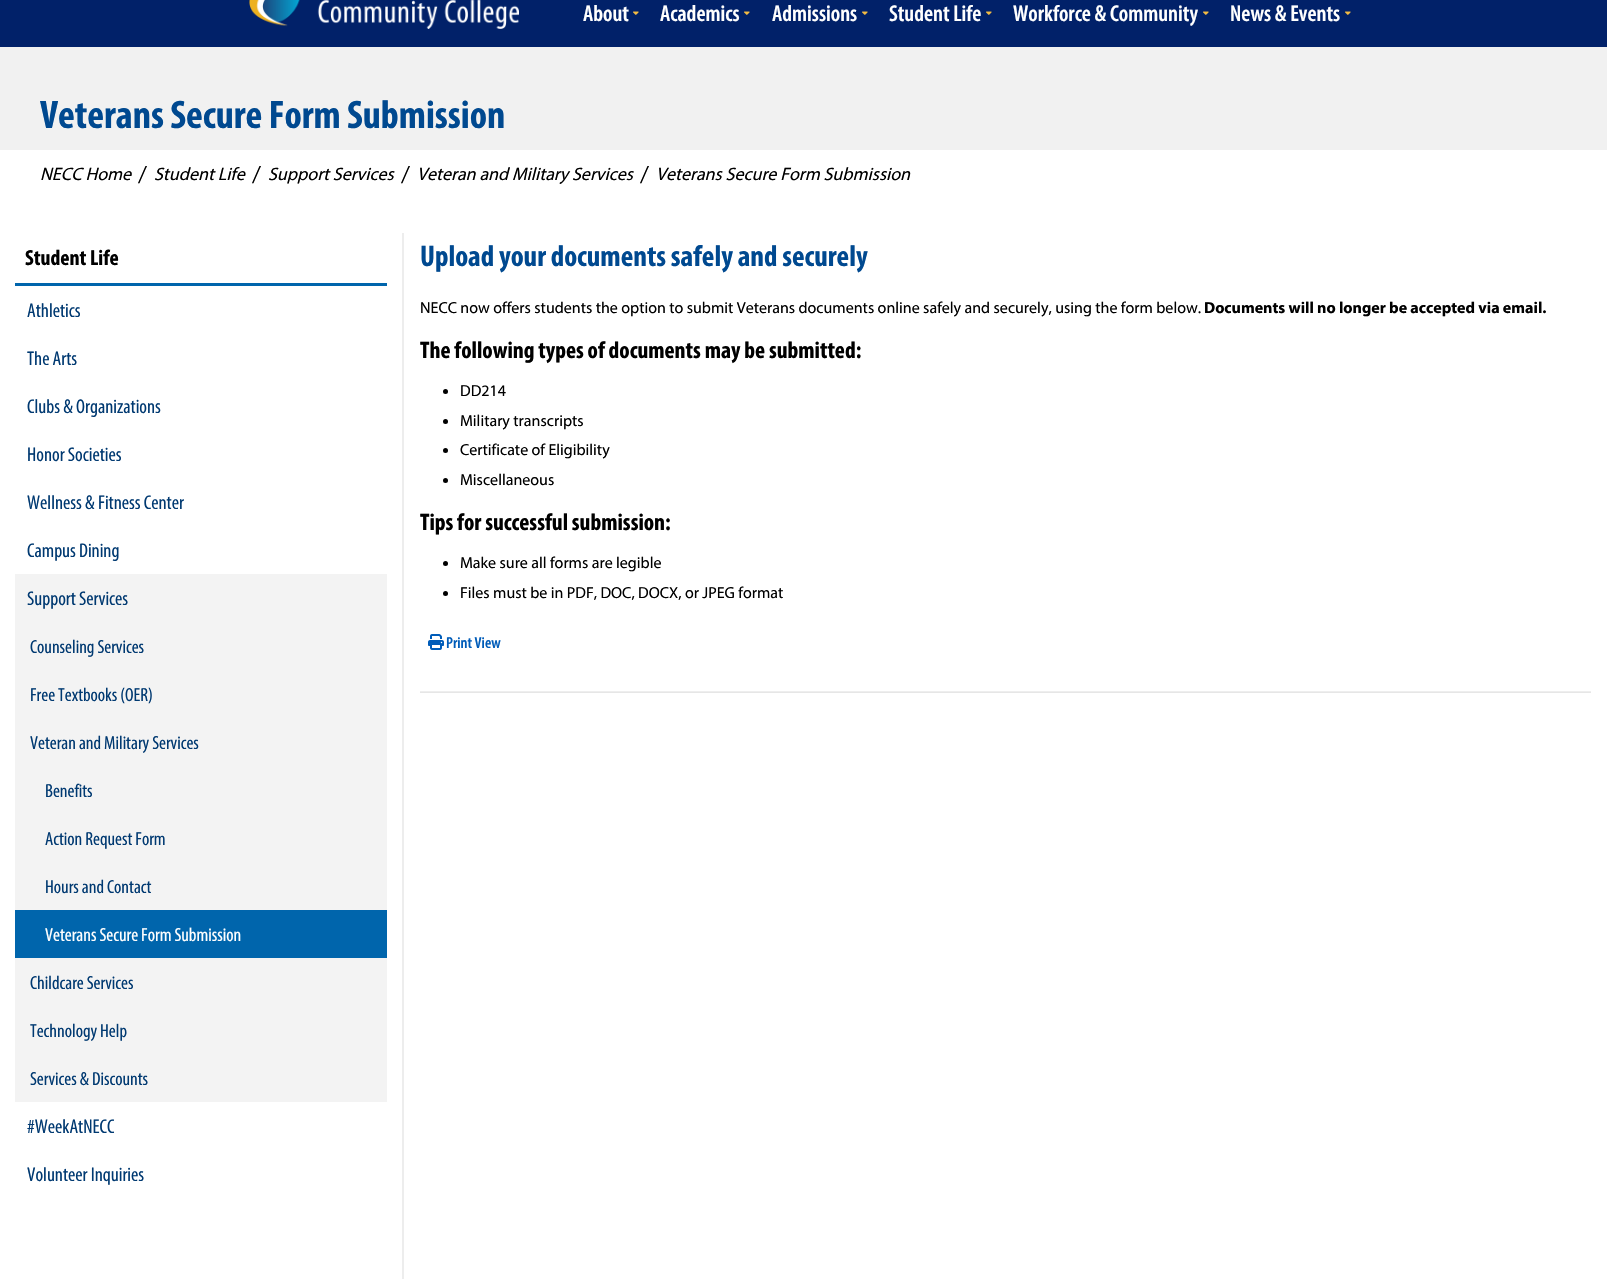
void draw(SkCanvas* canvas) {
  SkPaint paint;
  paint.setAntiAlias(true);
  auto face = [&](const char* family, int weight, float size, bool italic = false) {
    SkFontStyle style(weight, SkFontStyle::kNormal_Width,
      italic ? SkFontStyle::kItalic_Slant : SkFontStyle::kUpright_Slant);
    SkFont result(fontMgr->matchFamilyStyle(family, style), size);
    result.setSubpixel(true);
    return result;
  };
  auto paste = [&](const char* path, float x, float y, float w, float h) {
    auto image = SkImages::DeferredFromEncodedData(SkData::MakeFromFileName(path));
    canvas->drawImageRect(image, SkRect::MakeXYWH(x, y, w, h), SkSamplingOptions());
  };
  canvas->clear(0xffffffff);
  paint.setColor(0xff012169);
  canvas->drawRect(SkRect::MakeXYWH(0, 0, 1607, 47), paint);
  paste("img/1.png", 249, 0, 270, 29);
  paste("img/2.png", 633, 11, 6, 4);
  paste("img/2.png", 744, 11, 6, 4);
  paste("img/2.png", 862, 11, 6, 4);
  paste("img/2.png", 986, 11, 6, 4);
  paste("img/2.png", 1203, 11, 6, 4);
  paste("img/2.png", 1345, 11, 6, 4);
  {
    const struct { float x, y, w, h; SkColor color; } items[] = {
      {0, 47, 1607, 103, 0xfff1f1f1},
      {15, 283, 372, 3, 0xff0065ac},
      {15, 574, 372, 528, 0xfff3f3f3},
      {15, 910, 372, 48, 0xff0065ac},
      {402, 233, 2, 1046, 0xffededed},
    };
    for (auto [x, y, w, h, color] : items) {
      paint.setColor(color);
      canvas->drawRect(SkRect::MakeXYWH(x, y, w, h), paint);
    }
  }
  paint.setColor(0xff000000);
  canvas->drawCircle(445.5f, 391.5f, 2.5f, paint);
  canvas->drawCircle(445.5f, 421.5f, 2.5f, paint);
  canvas->drawCircle(445.5f, 450.5f, 2.5f, paint);
  canvas->drawCircle(445.5f, 480.5f, 2.5f, paint);
  canvas->drawCircle(445.5f, 563.5f, 2.5f, paint);
  canvas->drawCircle(445.5f, 593.5f, 2.5f, paint);
  paste("img/3.png", 428, 634, 16, 16);
  paint.setColor(0xffeeeeee);
  canvas->drawRect(SkRect::MakeXYWH(420, 691, 1171, 1), paint);
  paint.setColor(0xffe6e6e6);
  canvas->drawRect(SkRect::MakeXYWH(420, 692, 1171, 1), paint);
  auto f0 = face("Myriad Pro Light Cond", 600, 23);
  paint.setColor(0xffffffff);
  {
    const struct { const char* s; float x, y; } items[] = {
      {"About", 583, 21},
      {"Academics", 660, 21},
      {"Admissions", 772, 21},
      {"Student Life", 889, 21},
      {"Workforce & Community", 1013, 21},
      {"News & Events", 1230, 21},
    };
    for (auto [s, x, y] : items) {
      canvas->drawString(s, x, y, f0, paint);
    }
  }
  auto f1 = face("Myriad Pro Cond", 700, 40);
  paint.setColor(0xff004990);
  canvas->drawString("Veterans Secure Form Submission", 40, 128, f1, paint);
  auto f2 = face("Myriad", 400, 18, true);
  paint.setColor(0xff000000);
  canvas->drawString("NECC Home", 40, 180, f2, paint);
  auto f3 = face("Merriweather", 400, 18, true);
  canvas->drawString("/", 139, 180, f3, paint);
  canvas->drawString("Student Life", 154, 180, f2, paint);
  canvas->drawString("/", 253, 180, f3, paint);
  canvas->drawString("Support Services", 268, 180, f2, paint);
  canvas->drawString("/", 402, 180, f3, paint);
  canvas->drawString("Veteran and Military Services", 417, 180, f2, paint);
  canvas->drawString("/", 641, 180, f3, paint);
  canvas->drawString("Veterans Secure Form Submission", 656, 180, f2, paint);
  auto f4 = face("Myriad Pro Cond", 700, 22);
  canvas->drawString("Student Life", 25, 265, f4, paint);
  auto f5 = face("Myriad Pro Cond", 400, 20);
  paint.setColor(0xff003971);
  {
    const struct { const char* s; float x, y; } items[] = {
      {"Athletics", 27, 317},
      {"The Arts", 27, 365},
      {"Clubs & Organizations", 27, 413},
      {"Honor Societies", 27, 461},
      {"Wellness & Fitness Center", 27, 509},
      {"Campus Dining", 27, 557},
      {"Support Services", 27, 605},
    };
    for (auto [s, x, y] : items) {
      canvas->drawString(s, x, y, f5, paint);
    }
  }
  auto f6 = face("Myriad Pro Cond", 400, 19);
  {
    const struct { const char* s; float x, y; } items[] = {
      {"Counseling Services", 30, 653},
      {"Free Textbooks (OER)", 30, 701},
      {"Veteran and Military Services", 30, 749},
      {"Benefits", 45, 797},
      {"Action Request Form", 45, 845},
      {"Hours and Contact", 45, 893},
    };
    for (auto [s, x, y] : items) {
      canvas->drawString(s, x, y, f6, paint);
    }
  }
  paint.setColor(0xffffffff);
  canvas->drawString("Veterans Secure Form Submission", 45, 941, f6, paint);
  paint.setColor(0xff003971);
  {
    const struct { const char* s; float x, y; } items[] = {
      {"Childcare Services", 30, 989},
      {"Technology Help", 30, 1037},
      {"Services & Discounts", 30, 1085},
    };
    for (auto [s, x, y] : items) {
      canvas->drawString(s, x, y, f6, paint);
    }
  }
  canvas->drawString("#WeekAtNECC", 27, 1133, f5, paint);
  canvas->drawString("Volunteer Inquiries", 27, 1181, f5, paint);
  auto f7 = face("Myriad Pro Cond", 700, 30);
  paint.setColor(0xff004990);
  canvas->drawString("Upload your documents safely and securely", 420, 266, f7, paint);
  auto f8 = face("Myriad", 400, 16);
  paint.setColor(0xff000000);
  canvas->drawString("NECC now offers students the option to submit Veterans documents online safely and securely, using the form below.", 420, 313, f8, paint);
  auto f9 = face("Myriad", 700, 16);
  canvas->drawString("Documents will no longer be accepted via email.", 1204, 313, f9, paint);
  auto f10 = face("Myriad Pro Cond", 700, 24);
  canvas->drawString("The following types of documents may be submitted:", 420, 358, f10, paint);
  {
    const struct { const char* s; float x, y; } items[] = {
      {"DD214", 460, 396},
      {"Military transcripts", 460, 426},
      {"Certificate of Eligibility", 460, 455},
      {"Miscellaneous", 460, 485},
    };
    for (auto [s, x, y] : items) {
      canvas->drawString(s, x, y, f8, paint);
    }
  }
  canvas->drawString("Tips for successful submission:", 420, 530, f10, paint);
  canvas->drawString("Make sure all forms are legible", 460, 568, f8, paint);
  canvas->drawString("Files must be in PDF, DOC, DOCX, or JPEG format", 460, 598, f8, paint);
  auto f11 = face("Myriad Pro Light Cond", 600, 16);
  paint.setColor(0xff005cb9);
  canvas->drawString("Print View", 446, 648, f11, paint);
}
